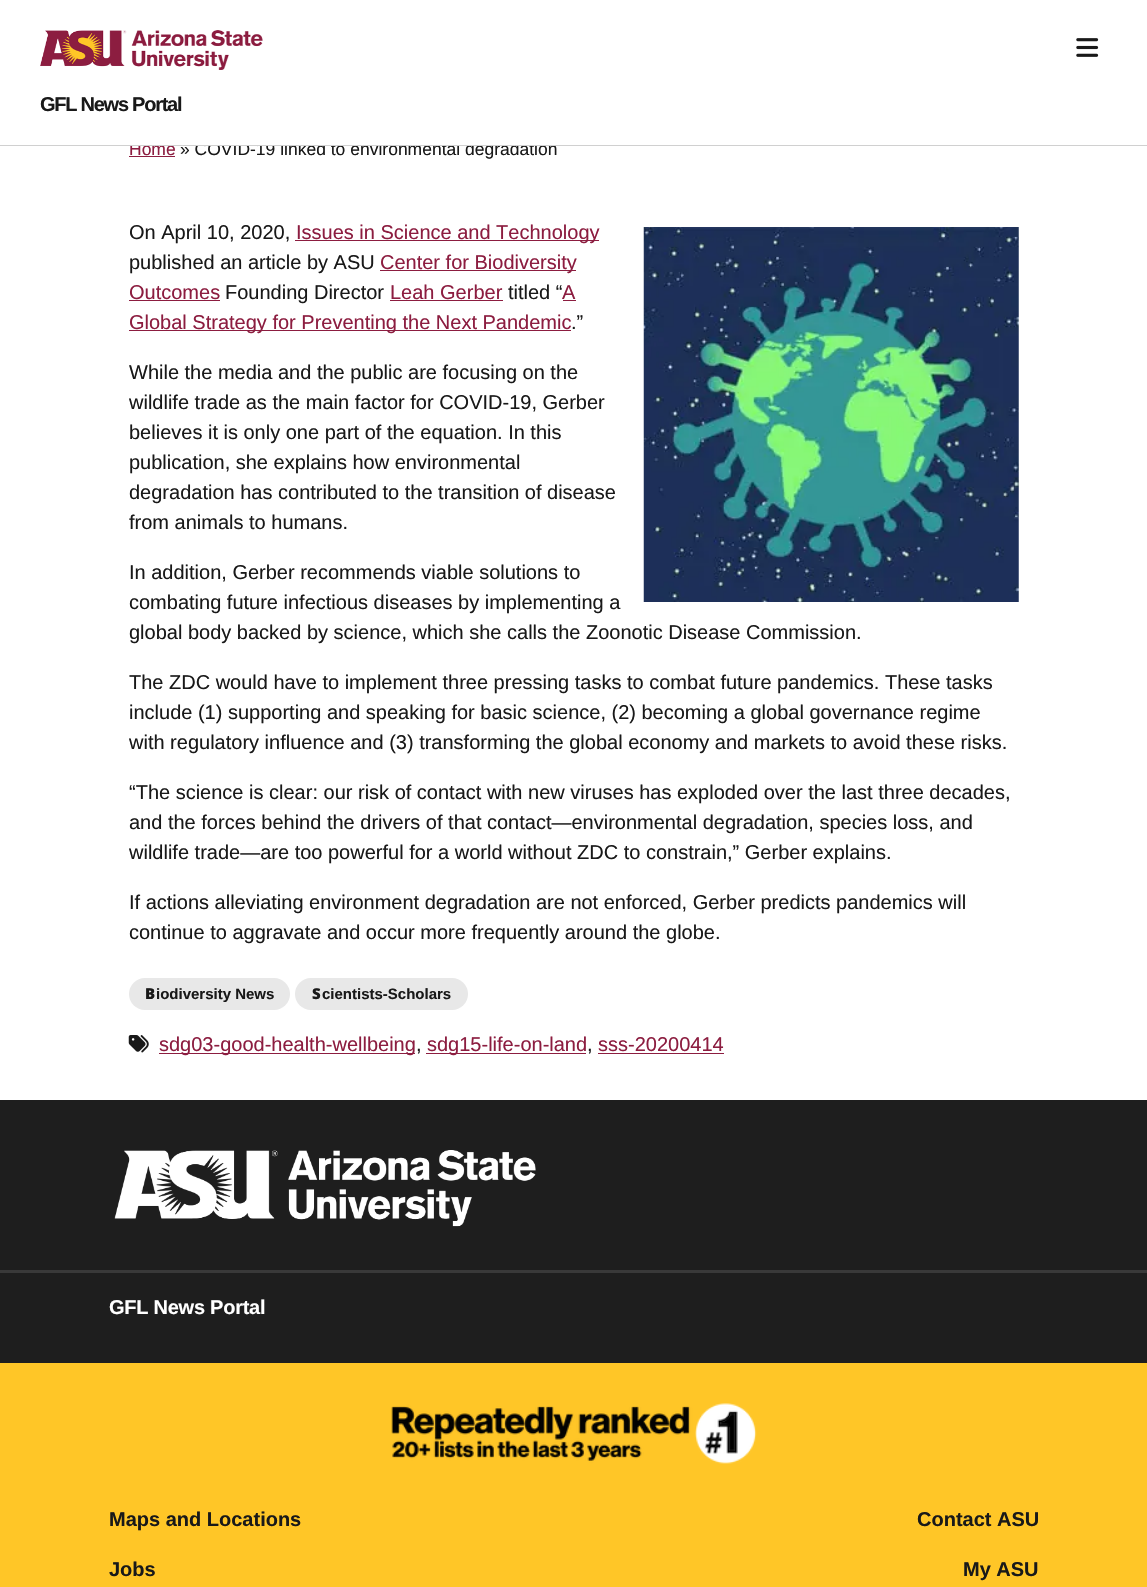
void draw(SkCanvas* canvas) {
  SkPaint paint;
  paint.setAntiAlias(true);
  auto face = [&](const char* family, int weight, float size, bool italic = false) {
    SkFontStyle style(weight, SkFontStyle::kNormal_Width,
      italic ? SkFontStyle::kItalic_Slant : SkFontStyle::kUpright_Slant);
    SkFont result(fontMgr->matchFamilyStyle(family, style), size);
    result.setSubpixel(true);
    return result;
  };
  auto writeSpaced = [&](const char* s, float x, float y, const SkFont& font, const SkPaint& ink, float letter, float word) {
    std::vector<SkGlyphID> glyphs(font.countText(s, strlen(s), SkTextEncoding::kUTF8));
    std::vector<float> xs(glyphs.size());
    font.textToGlyphs(s, strlen(s), SkTextEncoding::kUTF8, glyphs);
    font.getXPos(glyphs, xs, x);
    float extra = 0;
    for (size_t i = 0; i < glyphs.size(); i++) {
      xs[i] += extra;
      extra += letter + word * (glyphs[i] == font.unicharToGlyph(' '));
    }
    canvas->drawTextBlob(SkTextBlob::MakeFromPosHGlyphs(glyphs, xs, y, font), 0, 0, ink);
  };
  auto paste = [&](const char* path, float x, float y, float w, float h) {
    auto image = SkImages::DeferredFromEncodedData(SkData::MakeFromFileName(path));
    canvas->drawImageRect(image, SkRect::MakeXYWH(x, y, w, h), SkSamplingOptions());
  };
  canvas->clear(0xffffffff);
  paste("img/1.png", 40, 30, 223, 40);
  paste("img/2.png", 1076, 38, 23, 19);
  {
    const struct { float x, y, w, h; SkColor color; } items[] = {
      {129, 156, 46, 1, 0xff8c1d40},
      {295, 240, 304, 1, 0xff8c1d40},
      {380, 270, 196, 1, 0xff8c1d40},
      {129, 300, 91, 1, 0xff8c1d40},
      {390, 300, 113, 1, 0xff8c1d40},
      {563, 300, 13, 1, 0xff8c1d40},
      {129, 330, 442, 1, 0xff8c1d40},
    };
    for (auto [x, y, w, h, color] : items) {
      paint.setColor(color);
      canvas->drawRect(SkRect::MakeXYWH(x, y, w, h), paint);
    }
  }
  paste("img/3.png", 643, 227, 376, 375);
  paint.setColor(0xffe8e8e8);
  canvas->drawRoundRect(SkRect::MakeXYWH(129, 978, 161, 32), 16, 16, paint);
  canvas->drawRoundRect(SkRect::MakeXYWH(295, 978, 173, 32), 16, 16, paint);
  paste("img/4.png", 128, 1035, 21, 18);
  {
    const struct { float x, y, w, h; SkColor color; } items[] = {
      {159, 1053, 256, 1, 0xff8c1d40},
      {426, 1053, 160, 1, 0xff8c1d40},
      {598, 1053, 126, 1, 0xff8c1d40},
      {0, 1100, 1147, 170, 0xff1e1e1e},
    };
    for (auto [x, y, w, h, color] : items) {
      paint.setColor(color);
      canvas->drawRect(SkRect::MakeXYWH(x, y, w, h), paint);
    }
  }
  paste("img/5.png", 114, 1150, 422, 77);
  {
    const struct { float x, y, w, h; SkColor color; } items[] = {
      {0, 1273, 1147, 90, 0xff1e1e1e},
      {0, 1270, 1147, 3, 0xff393939},
      {0, 1363, 1147, 224, 0xffffc627},
    };
    for (auto [x, y, w, h, color] : items) {
      paint.setColor(color);
      canvas->drawRect(SkRect::MakeXYWH(x, y, w, h), paint);
    }
  }
  paste("img/6.png", 391, 1403, 366, 61);
  auto f0 = face("Liberation Sans", 700, 20);
  paint.setColor(0xff191919);
  writeSpaced("GFL News Portal", 40, 111, f0, paint, -1.25f, 0);
  auto f1 = face("Liberation Sans", 400, 17.5f);
  paint.setColor(0xff8c1d40);
  canvas->drawString("Home", 129, 155, f1, paint);
  paint.setColor(0xff191919);
  canvas->drawString("» COVID-19 linked to environmental degradation", 180, 155, f1, paint);
  paint.setColor(0xffd0d0d0);
  canvas->drawRect(SkRect::MakeXYWH(0, 145, 1147, 1), paint);
  paint.setColor(0xffffffff);
  canvas->drawRect(SkRect::MakeXYWH(130, 142, 408, 3), paint);
  auto f2 = face("Liberation Sans", 400, 20);
  paint.setColor(0xff191919);
  canvas->drawString("On April 10, 2020,", 129, 239, f2, paint);
  paint.setColor(0xff8c1d40);
  canvas->drawString("Issues in Science and Technology", 296, 239, f2, paint);
  paint.setColor(0xff191919);
  canvas->drawString("published an article by ASU", 129, 269, f2, paint);
  paint.setColor(0xff8c1d40);
  canvas->drawString("Center for Biodiversity", 380, 269, f2, paint);
  canvas->drawString("Outcomes", 129, 299, f2, paint);
  paint.setColor(0xff191919);
  canvas->drawString("Founding Director", 225, 299, f2, paint);
  paint.setColor(0xff8c1d40);
  canvas->drawString("Leah Gerber", 390, 299, f2, paint);
  paint.setColor(0xff191919);
  canvas->drawString("titled “", 508, 299, f2, paint);
  paint.setColor(0xff8c1d40);
  canvas->drawString("A", 562, 299, f2, paint);
  canvas->drawString("Global Strategy for Preventing the Next Pandemic", 129, 329, f2, paint);
  paint.setColor(0xff191919);
  {
    const struct { const char* s; float x, y; } items[] = {
      {".”", 571, 329},
      {"While the media and the public are focusing on the", 129, 379},
      {"wildlife trade as the main factor for COVID-19, Gerber", 129, 409},
      {"believes it is only one part of the equation. In this", 129, 439},
      {"publication, she explains how environmental", 129, 469},
      {"degradation has contributed to the transition of disease", 129, 499},
      {"from animals to humans.", 129, 529},
      {"In addition, Gerber recommends viable solutions to", 129, 579},
      {"combating future infectious diseases by implementing a", 129, 609},
      {"global body backed by science, which she calls the Zoonotic Disease Commission.", 129, 639},
      {"The ZDC would have to implement three pressing tasks to combat future pandemics. These tasks", 129, 689},
      {"include (1) supporting and speaking for basic science, (2) becoming a global governance regime", 129, 719},
      {"with regulatory influence and (3) transforming the global economy and markets to avoid these risks.", 129, 749},
      {"“The science is clear: our risk of contact with new viruses has exploded over the last three decades,", 129, 799},
      {"and the forces behind the drivers of that contact—environmental degradation, species loss, and", 129, 829},
      {"wildlife trade—are too powerful for a world without ZDC to constrain,” Gerber explains.", 129, 859},
      {"If actions alleviating environment degradation are not enforced, Gerber predicts pandemics will", 129, 909},
      {"continue to aggravate and occur more frequently around the globe.", 129, 939},
    };
    for (auto [s, x, y] : items) {
      canvas->drawString(s, x, y, f2, paint);
    }
  }
  auto f3 = face("Noto Sans", 900, 15);
  canvas->drawString("B", 145, 999, f3, paint);
  auto f4 = face("Liberation Sans", 700, 15);
  canvas->drawString("iodiversity News", 156, 999, f4, paint);
  canvas->drawString("S", 312, 999, f3, paint);
  canvas->drawString("cientists-Scholars", 322, 999, f4, paint);
  paint.setColor(0xff8c1d40);
  canvas->drawString("sdg03-good-health-wellbeing", 159, 1051, f2, paint);
  paint.setColor(0xff191919);
  canvas->drawString(",", 416, 1051, f2, paint);
  paint.setColor(0xff8c1d40);
  canvas->drawString("sdg15-life-on-land", 427, 1051, f2, paint);
  paint.setColor(0xff191919);
  canvas->drawString(",", 587, 1051, f2, paint);
  paint.setColor(0xff8c1d40);
  canvas->drawString("sss-20200414", 598, 1051, f2, paint);
  paint.setColor(0xffffffff);
  writeSpaced("GFL News Portal", 109, 1314, f0, paint, -0.25f, 0);
  paint.setColor(0xff191919);
  {
    const struct { const char* s; float x, y; } items[] = {
      {"Maps and Locations", 109, 1526},
      {"Contact ASU", 917, 1526},
      {"Jobs", 109, 1576},
      {"My ASU", 963, 1576},
    };
    for (auto [s, x, y] : items) {
      canvas->drawString(s, x, y, f0, paint);
    }
  }
}
